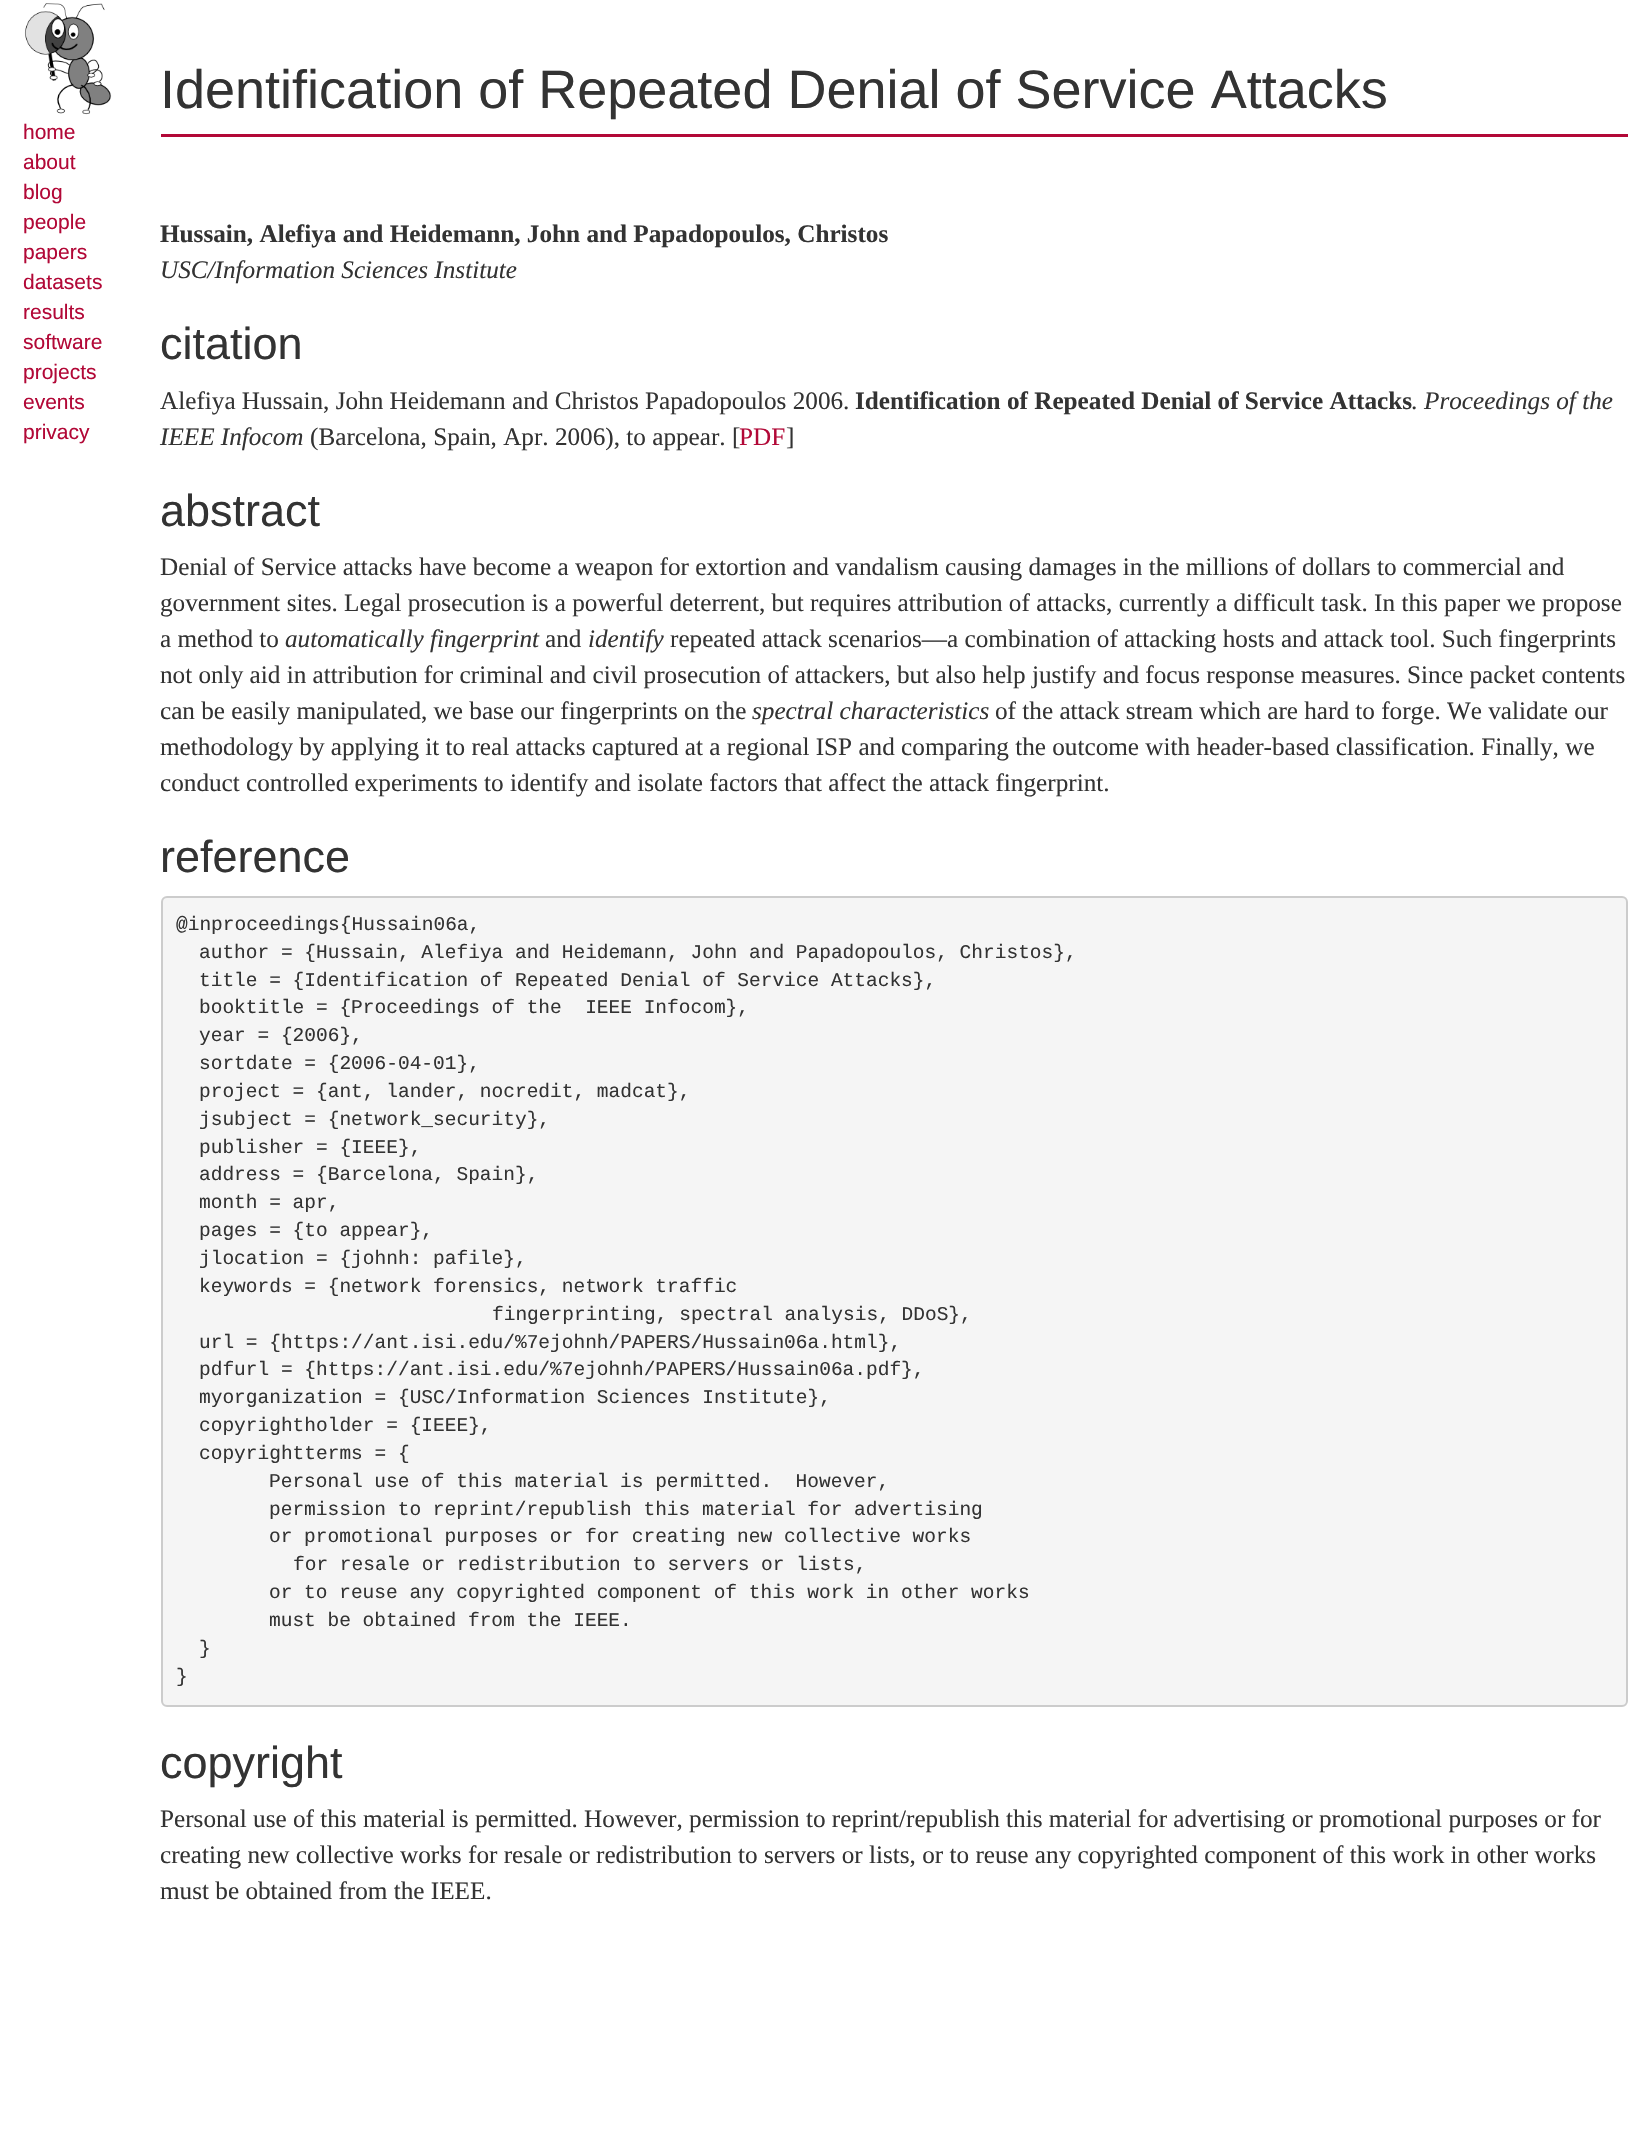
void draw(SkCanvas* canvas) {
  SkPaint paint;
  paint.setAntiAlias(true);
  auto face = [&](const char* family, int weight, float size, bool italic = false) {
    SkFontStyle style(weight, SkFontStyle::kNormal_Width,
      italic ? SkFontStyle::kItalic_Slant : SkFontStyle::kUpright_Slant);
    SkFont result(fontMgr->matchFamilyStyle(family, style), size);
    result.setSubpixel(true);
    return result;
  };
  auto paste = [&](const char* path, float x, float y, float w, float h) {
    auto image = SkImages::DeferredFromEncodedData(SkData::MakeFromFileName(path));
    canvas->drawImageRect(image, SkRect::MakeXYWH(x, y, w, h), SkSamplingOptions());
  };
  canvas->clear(0xffffffff);
  paste("img/1.png", 24, 3, 88, 112);
  paint.setColor(0xffb20837);
  canvas->drawRect(SkRect::MakeXYWH(161, 134, 1467, 3), paint);
  paint.setColor(0xfff5f5f5);
  canvas->drawRoundRect(SkRect::MakeXYWH(162, 897, 1465, 809), 5, 5, paint);
  paint.setStroke(true);
  paint.setStrokeWidth(2);
  paint.setColor(0xffcccccc);
  canvas->drawRoundRect(SkRect::MakeXYWH(162, 897, 1465, 809), 5, 5, paint);
  auto f0 = face("Liberation Sans", 400, 21);
  paint.setStroke(false);
  paint.setColor(0xffb20837);
  {
    const struct { const char* s; float x, y; } items[] = {
      {"home", 23, 139},
      {"about", 23, 169},
      {"blog", 23, 199},
      {"people", 23, 229},
      {"papers", 23, 259},
      {"datasets", 23, 289},
      {"results", 23, 319},
      {"software", 23, 349},
      {"projects", 23, 379},
      {"events", 23, 409},
      {"privacy", 23, 439},
    };
    for (auto [s, x, y] : items) {
      canvas->drawString(s, x, y, f0, paint);
    }
  }
  auto f1 = face("Liberation Sans", 400, 54);
  paint.setColor(0xff333333);
  canvas->drawString("Identification of Repeated Denial of Service Attacks", 160, 108, f1, paint);
  auto f2 = face("Liberation Serif", 700, 25.2f);
  canvas->drawString("Hussain, Alefiya and Heidemann, John and Papadopoulos, Christos", 160, 242, f2, paint);
  auto f3 = face("Liberation Serif", 400, 25.2f, true);
  canvas->drawString("USC/Information Sciences Institute", 160, 278, f3, paint);
  auto f4 = face("Liberation Sans", 400, 45);
  canvas->drawString("citation", 160, 359, f4, paint);
  auto f5 = face("Liberation Serif", 400, 25.2f);
  canvas->drawString("Alefiya Hussain, John Heidemann and Christos Papadopoulos 2006.", 160, 409, f5, paint);
  canvas->drawString("Identification of Repeated Denial of Service Attacks", 855, 409, f2, paint);
  canvas->drawString(".", 1411, 409, f5, paint);
  canvas->drawString("Proceedings of the", 1424, 409, f3, paint);
  canvas->drawString("IEEE Infocom", 160, 445, f3, paint);
  canvas->drawString("(Barcelona, Spain, Apr. 2006), to appear. [", 310, 445, f5, paint);
  paint.setColor(0xffb20837);
  canvas->drawString("PDF", 739, 445, f5, paint);
  paint.setColor(0xff333333);
  canvas->drawString("]", 786, 445, f5, paint);
  canvas->drawString("abstract", 160, 526, f4, paint);
  {
    const struct { const char* s; float x, y; } items[] = {
      {"Denial of Service attacks have become a weapon for extortion and vandalism causing damages in the millions of dollars to commercial and", 160, 575},
      {"government sites. Legal prosecution is a powerful deterrent, but requires attribution of attacks, currently a difficult task. In this paper we propose", 160, 611},
      {"a method to", 160, 647},
    };
    for (auto [s, x, y] : items) {
      canvas->drawString(s, x, y, f5, paint);
    }
  }
  canvas->drawString("automatically fingerprint", 285, 647, f3, paint);
  canvas->drawString("and", 545, 647, f5, paint);
  canvas->drawString("identify", 588, 647, f3, paint);
  {
    const struct { const char* s; float x, y; } items[] = {
      {"repeated attack scenarios—a combination of attacking hosts and attack tool. Such fingerprints", 670, 647},
      {"not only aid in attribution for criminal and civil prosecution of attackers, but also help justify and focus response measures. Since packet contents", 160, 683},
      {"can be easily manipulated, we base our fingerprints on the", 160, 719},
    };
    for (auto [s, x, y] : items) {
      canvas->drawString(s, x, y, f5, paint);
    }
  }
  canvas->drawString("spectral characteristics", 752, 719, f3, paint);
  {
    const struct { const char* s; float x, y; } items[] = {
      {"of the attack stream which are hard to forge. We validate our", 995, 719},
      {"methodology by applying it to real attacks captured at a regional ISP and comparing the outcome with header-based classification. Finally, we", 160, 755},
      {"conduct controlled experiments to identify and isolate factors that affect the attack fingerprint.", 160, 791},
    };
    for (auto [s, x, y] : items) {
      canvas->drawString(s, x, y, f5, paint);
    }
  }
  canvas->drawString("reference", 160, 872, f4, paint);
  auto f6 = face("Liberation Mono", 400, 19.5f);
  {
    const struct { const char* s; float x, y; } items[] = {
      {"@inproceedings{Hussain06a,", 176, 930},
      {"author = {Hussain, Alefiya and Heidemann, John and Papadopoulos, Christos},", 199, 958},
      {"title = {Identification of Repeated Denial of Service Attacks},", 199, 986},
      {"booktitle = {Proceedings of the  IEEE Infocom},", 199, 1013},
      {"year = {2006},", 199, 1041},
      {"sortdate = {2006-04-01},", 199, 1069},
      {"project = {ant, lander, nocredit, madcat},", 199, 1097},
      {"jsubject = {network_security},", 199, 1125},
      {"publisher = {IEEE},", 199, 1153},
      {"address = {Barcelona, Spain},", 199, 1180},
      {"month = apr,", 199, 1208},
      {"pages = {to appear},", 199, 1236},
      {"jlocation = {johnh: pafile},", 199, 1264},
      {"keywords = {network forensics, network traffic", 199, 1292},
      {"fingerprinting, spectral analysis, DDoS},", 492, 1320},
      {"url = {https://ant.isi.edu/%7ejohnh/PAPERS/Hussain06a.html},", 199, 1348},
      {"pdfurl = {https://ant.isi.edu/%7ejohnh/PAPERS/Hussain06a.pdf},", 199, 1375},
      {"myorganization = {USC/Information Sciences Institute},", 199, 1403},
      {"copyrightholder = {IEEE},", 199, 1431},
      {"copyrightterms = {", 199, 1459},
      {"Personal use of this material is permitted.  However,", 269, 1487},
      {"permission to reprint/republish this material for advertising", 269, 1515},
      {"or promotional purposes or for creating new collective works", 269, 1542},
      {"for resale or redistribution to servers or lists,", 293, 1570},
      {"or to reuse any copyrighted component of this work in other works", 269, 1598},
      {"must be obtained from the IEEE.", 269, 1626},
      {"}", 199, 1654},
      {"}", 176, 1682},
    };
    for (auto [s, x, y] : items) {
      canvas->drawString(s, x, y, f6, paint);
    }
  }
  canvas->drawString("copyright", 160, 1778, f4, paint);
  {
    const struct { const char* s; float x, y; } items[] = {
      {"Personal use of this material is permitted. However, permission to reprint/republish this material for advertising or promotional purposes or for", 160, 1827},
      {"creating new collective works", 160, 1863},
      {"for resale or redistribution to servers or lists, or to reuse any copyrighted component of this work in other works", 468, 1863},
      {"must be obtained from the IEEE.", 160, 1899},
    };
    for (auto [s, x, y] : items) {
      canvas->drawString(s, x, y, f5, paint);
    }
  }
}
